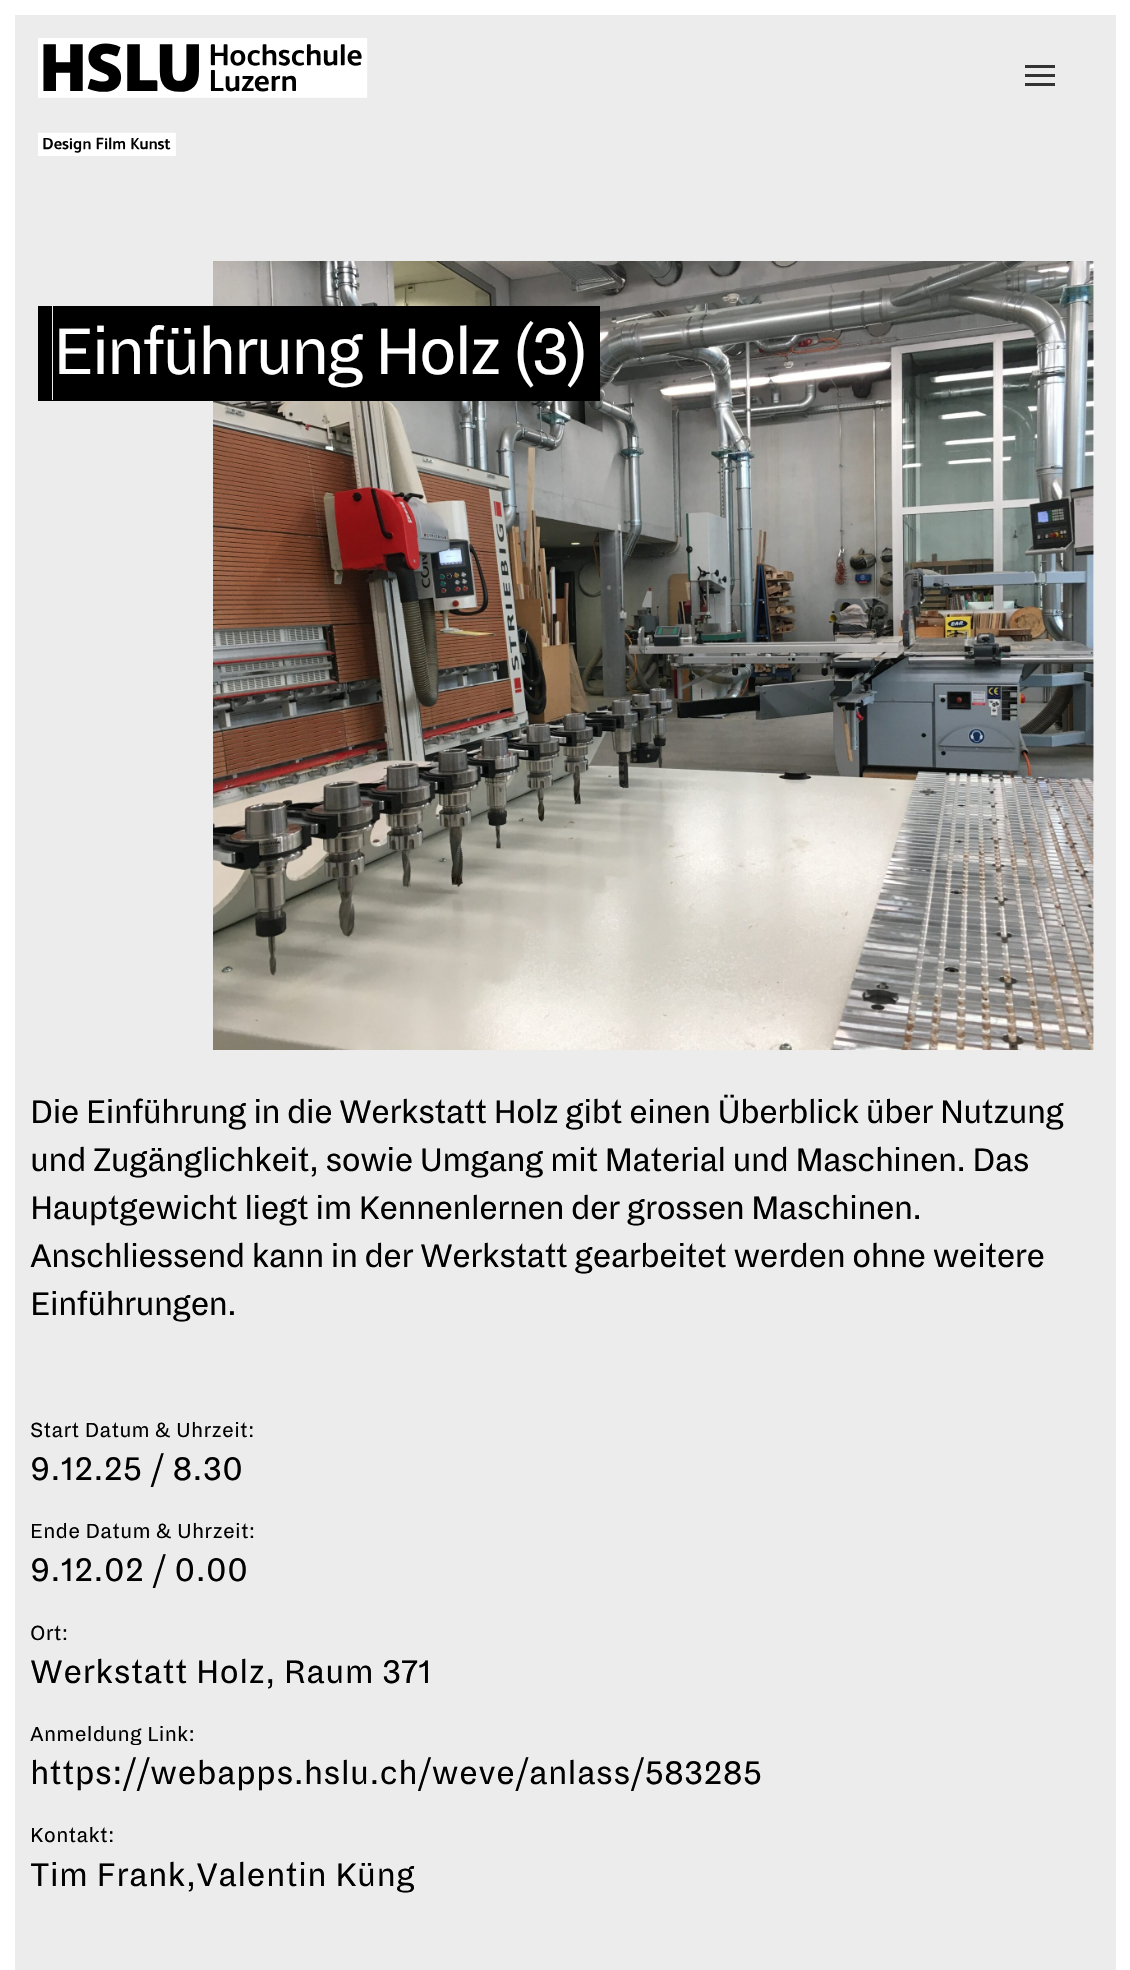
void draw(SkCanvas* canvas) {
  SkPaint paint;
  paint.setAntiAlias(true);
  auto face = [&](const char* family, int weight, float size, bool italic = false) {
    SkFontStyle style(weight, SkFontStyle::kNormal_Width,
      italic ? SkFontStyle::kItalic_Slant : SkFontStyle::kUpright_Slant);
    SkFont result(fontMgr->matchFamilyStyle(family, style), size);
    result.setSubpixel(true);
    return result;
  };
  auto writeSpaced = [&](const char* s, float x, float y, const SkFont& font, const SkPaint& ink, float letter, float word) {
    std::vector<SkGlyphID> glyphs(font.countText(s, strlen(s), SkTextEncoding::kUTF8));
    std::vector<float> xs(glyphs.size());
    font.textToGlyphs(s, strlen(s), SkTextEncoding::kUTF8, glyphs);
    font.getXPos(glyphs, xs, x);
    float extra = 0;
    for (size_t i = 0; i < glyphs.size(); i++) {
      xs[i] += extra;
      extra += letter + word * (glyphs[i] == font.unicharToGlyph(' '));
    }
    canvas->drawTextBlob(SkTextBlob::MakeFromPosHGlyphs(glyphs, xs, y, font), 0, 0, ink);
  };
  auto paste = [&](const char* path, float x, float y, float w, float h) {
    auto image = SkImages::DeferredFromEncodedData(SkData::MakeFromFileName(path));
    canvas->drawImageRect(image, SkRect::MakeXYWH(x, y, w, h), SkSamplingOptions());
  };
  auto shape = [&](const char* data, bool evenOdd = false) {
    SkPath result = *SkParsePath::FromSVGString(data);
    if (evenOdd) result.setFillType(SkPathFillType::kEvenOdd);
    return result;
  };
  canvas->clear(0xffececec);
  paint.setStroke(true);
  paint.setStrokeWidth(15);
  paint.setColor(0xffffffff);
  canvas->drawRect(SkRect::MakeXYWH(7.5f, 7.5f, 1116, 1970), paint);
  paste("img/1.png", 38, 38, 330, 118);
  paint.setStroke(false);
  {
    const struct { float x, y, w, h; SkColor color; } items[] = {
      {1025, 65, 30, 3, 0xff333333},
      {1025, 74, 30, 3, 0xff333333},
      {1025, 83, 30, 3, 0xff333333},
      {1093, 261, 1, 789, 0xffffffff},
    };
    for (auto [x, y, w, h, color] : items) {
      paint.setColor(color);
      canvas->drawRect(SkRect::MakeXYWH(x, y, w, h), paint);
    }
  }
  paste("img/2.png", 213, 261, 881, 789);
  paint.setColor(0xff000000);
  canvas->drawPath(shape("M38 306V401H570V400H52V306Z"), paint);
  canvas->drawPath(shape("M68 400V401H600V306H585V400Z"), paint);
  canvas->drawRect(SkRect::MakeXYWH(53, 306, 532, 94), paint);
  auto f0 = face("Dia", 400, 72);
  paint.setColor(0xffffffff);
  writeSpaced("Einführung Holz (3)", 53, 374, f0, paint, -3, 0);
  auto f1 = face("Dia", 400, 36);
  paint.setColor(0xff000000);
  {
    const struct { const char* s; float x, y; } items[] = {
      {"Die Einführung in die Werkstatt Holz gibt einen Überblick über Nutzung", 30, 1123},
      {"und Zugänglichkeit, sowie Umgang mit Material und Maschinen. Das", 30, 1171},
      {"Hauptgewicht liegt im Kennenlernen der grossen Maschinen.", 30, 1219},
      {"Anschliessend kann in der Werkstatt gearbeitet werden ohne weitere", 30, 1267},
      {"Einführungen.", 30, 1315},
    };
    for (auto [s, x, y] : items) {
      writeSpaced(s, x, y, f1, paint, -0.9f, 0);
    }
  }
  auto f2 = face("Dia", 400, 22.5f);
  writeSpaced("Start Datum & Uhrzeit:", 30, 1437, f2, paint, 0.25f, 0);
  writeSpaced("9.12.25 / 8.30", 30, 1480, f1, paint, 0.25f, 0);
  writeSpaced("Ende Datum & Uhrzeit:", 30, 1538, f2, paint, 0.25f, 0);
  writeSpaced("9.12.02 / 0.00", 30, 1581, f1, paint, 0.25f, 0);
  writeSpaced("Ort:", 30, 1640, f2, paint, 0.25f, 0);
  writeSpaced("Werkstatt Holz, Raum 371", 30, 1683, f1, paint, 0.25f, 0);
  writeSpaced("Anmeldung Link:", 30, 1741, f2, paint, 0.25f, 0);
  writeSpaced("https://webapps.hslu.ch/weve/anlass/583285", 30, 1784, f1, paint, 0.25f, 0);
  writeSpaced("Kontakt:", 30, 1842, f2, paint, 0.25f, 0);
  writeSpaced("Tim Frank,Valentin Küng", 30, 1886, f1, paint, 0.25f, 0);
}
